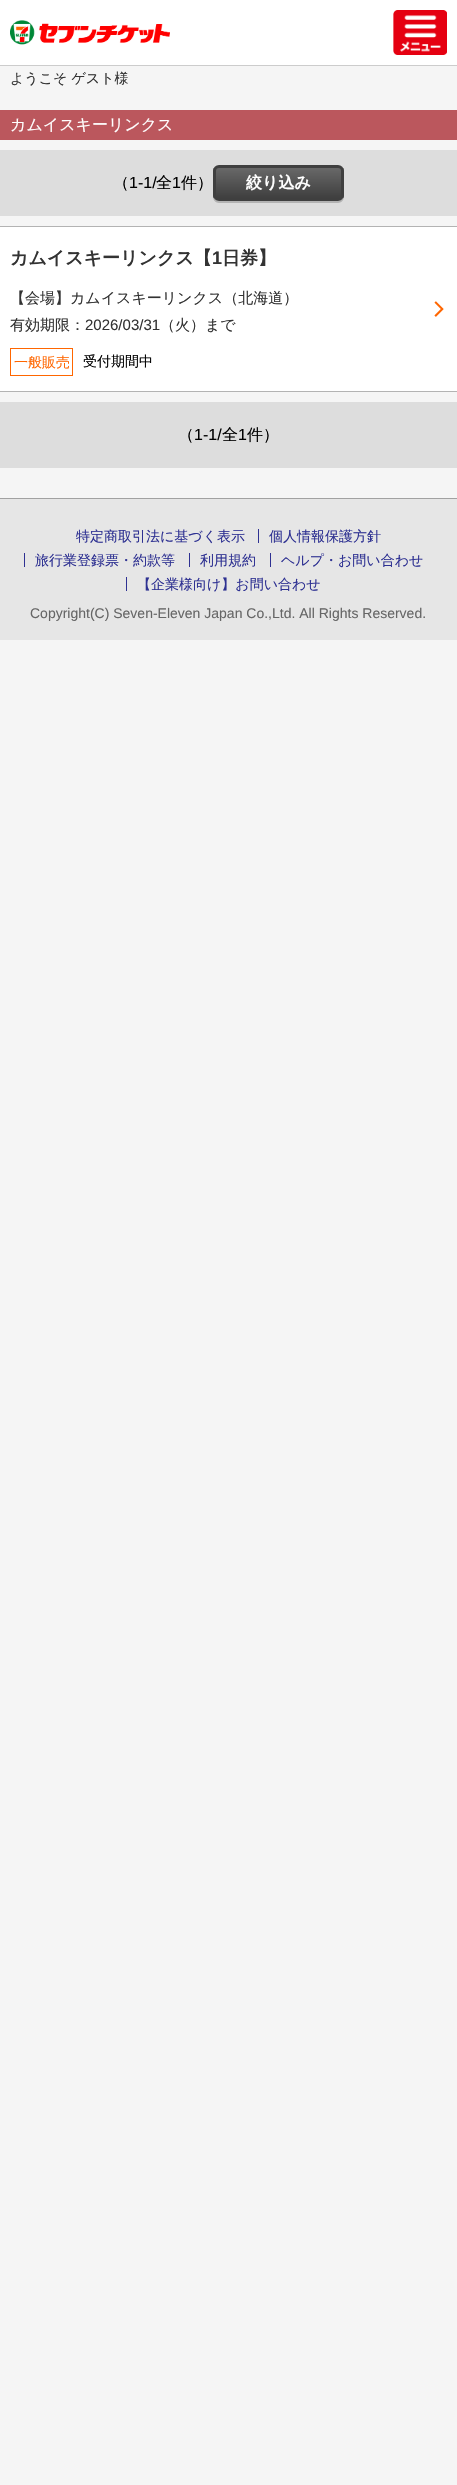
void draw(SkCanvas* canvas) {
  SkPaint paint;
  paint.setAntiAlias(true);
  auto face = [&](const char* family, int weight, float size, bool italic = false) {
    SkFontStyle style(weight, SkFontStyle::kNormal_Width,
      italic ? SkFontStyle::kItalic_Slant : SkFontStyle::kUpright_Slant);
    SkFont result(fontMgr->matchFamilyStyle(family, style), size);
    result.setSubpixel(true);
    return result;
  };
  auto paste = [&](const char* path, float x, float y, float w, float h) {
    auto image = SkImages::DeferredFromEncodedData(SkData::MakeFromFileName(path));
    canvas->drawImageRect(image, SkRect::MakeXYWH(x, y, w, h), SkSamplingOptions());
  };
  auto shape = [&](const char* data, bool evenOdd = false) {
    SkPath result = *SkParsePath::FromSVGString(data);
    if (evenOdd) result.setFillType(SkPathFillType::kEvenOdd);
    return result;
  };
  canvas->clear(0xfff5f5f5);
  paint.setColor(0xffffffff);
  canvas->drawRect(SkRect::MakeXYWH(0, 0, 457, 65), paint);
  paste("img/1.png", 10, 20, 160, 25);
  paste("img/2.png", 393, 10, 54, 45);
  {
    const struct { float x, y, w, h; SkColor color; } items[] = {
      {0, 65, 457, 1, 0xffcccccc},
      {0, 110, 457, 30, 0xffbb575d},
      {0, 150, 457, 66, 0xffdddddd},
    };
    for (auto [x, y, w, h, color] : items) {
      paint.setColor(color);
      canvas->drawRect(SkRect::MakeXYWH(x, y, w, h), paint);
    }
  }
  paint.setColor(0xffb3b3b3);
  canvas->drawPath(shape("M213 195V197C213 200 216 203 219 203H338C341 203 344 200 344 197V195C344 198 341 201 338 201H219C216 201 213 198 213 195Z"), paint);
  canvas->save();
  canvas->clipPath(shape("M219 165H338C341.5 165 344 167.5 344 171V195C344 198.5 341.5 201 338 201H219C215.5 201 213 198.5 213 195V171C213 167.5 215.5 165 219 165Z"), true);
  {
    const SkColor colors[] = {0xff686868, 0xff3f3f3f};
    const float stops[] = {0, 1};
    const SkPoint ends[] = {{279, 168}, {279, 198}};
    paint.setShader(SkGradientShader::MakeLinear(ends, colors, stops, 2, SkTileMode::kClamp));
    paint.setAlpha(255);
  }
  canvas->drawRect(SkRect::MakeXYWH(213, 168, 131, 30), paint);
  canvas->restore();
  paint.setStroke(true);
  paint.setStrokeWidth(3);
  paint.setShader(nullptr);
  paint.setColor(0xff3f3f3f);
  canvas->drawRoundRect(SkRect::MakeXYWH(214.5f, 166.5f, 128, 33), 4.5f, 4.5f, paint);
  paint.setStroke(false);
  {
    const struct { float x, y, w, h; SkColor color; } items[] = {
      {0, 226, 457, 1, 0xffb3b3b3},
      {0, 227, 457, 164, 0xffffffff},
      {0, 391, 457, 1, 0xffb3b3b3},
    };
    for (auto [x, y, w, h, color] : items) {
      paint.setColor(color);
      canvas->drawRect(SkRect::MakeXYWH(x, y, w, h), paint);
    }
  }
  paste("img/3.png", 434, 301, 10, 16);
  paint.setStroke(true);
  paint.setStrokeWidth(1);
  paint.setColor(0xffff6600);
  canvas->drawRect(SkRect::MakeXYWH(10.5f, 348.5f, 62, 27), paint);
  paint.setStroke(false);
  {
    const struct { float x, y, w, h; SkColor color; } items[] = {
      {0, 402, 457, 66, 0xffdddddd},
      {0, 499, 457, 141, 0xffe6e6e6},
      {0, 498, 457, 1, 0xffa1a1a1},
      {258, 529, 1, 14, 0xff2e3192},
      {24, 553, 1, 14, 0xff2e3192},
      {189, 553, 1, 14, 0xff2e3192},
      {270, 553, 1, 14, 0xff2e3192},
      {126, 577, 1, 14, 0xff2e3192},
    };
    for (auto [x, y, w, h, color] : items) {
      paint.setColor(color);
      canvas->drawRect(SkRect::MakeXYWH(x, y, w, h), paint);
    }
  }
  auto f0 = face("WenQuanYi Zen Hei", 500, 14);
  paint.setColor(0xff333333);
  canvas->drawString("ようこそ ゲスト様", 10, 83, f0, paint);
  auto f1 = face("WenQuanYi Zen Hei", 500, 16);
  paint.setColor(0xffffffff);
  canvas->drawString("カムイスキーリンクス", 10, 130, f1, paint);
  paint.setColor(0xff000000);
  canvas->drawString("（", 113, 188, f1, paint);
  auto f2 = face("Liberation Sans", 400, 16);
  canvas->drawString("1-1/", 129, 188, f2, paint);
  canvas->drawString("全", 156, 188, f1, paint);
  canvas->drawString("1", 172, 188, f2, paint);
  canvas->drawString("件）", 181, 188, f1, paint);
  auto f3 = face("WenQuanYi Zen Hei", 700, 16);
  paint.setColor(0xffffffff);
  canvas->drawString("絞り込み", 246, 188, f3, paint);
  auto f4 = face("WenQuanYi Zen Hei", 700, 18);
  paint.setColor(0xff333333);
  canvas->drawString("カムイスキーリンクス【", 10, 264, f4, paint);
  auto f5 = face("Liberation Sans", 700, 18);
  canvas->drawString("1", 212, 264, f5, paint);
  canvas->drawString("日券】", 222, 264, f4, paint);
  auto f6 = face("WenQuanYi Zen Hei", 500, 15);
  canvas->drawString("【会場】カムイスキーリンクス（北海道）", 10, 303, f6, paint);
  canvas->drawString("有効期限：", 10, 330, f6, paint);
  auto f7 = face("Liberation Sans", 400, 15);
  canvas->drawString("2026/03/31", 85, 330, f7, paint);
  canvas->drawString("（火）まで", 160, 330, f6, paint);
  paint.setColor(0xffff6600);
  canvas->drawString("一般販売", 14, 367, f0, paint);
  paint.setColor(0xff000000);
  canvas->drawString("受付期間中", 83, 366, f0, paint);
  canvas->drawString("（", 178, 440, f1, paint);
  canvas->drawString("1-1/", 194, 440, f2, paint);
  canvas->drawString("全", 222, 440, f1, paint);
  canvas->drawString("1", 238, 440, f2, paint);
  canvas->drawString("件）", 247, 440, f1, paint);
  paint.setColor(0xff2e3192);
  {
    const struct { const char* s; float x, y; } items[] = {
      {"特定商取引法に基づく表示", 76, 541},
      {"個人情報保護方針", 269, 541},
      {"旅行業登録票・約款等", 35, 565},
      {"利用規約", 200, 565},
      {"ヘルプ・お問い合わせ", 281, 565},
      {"【企業様向け】お問い合わせ", 137, 589},
    };
    for (auto [s, x, y] : items) {
      canvas->drawString(s, x, y, f0, paint);
    }
  }
  auto f8 = face("Liberation Sans", 400, 14);
  paint.setColor(0xff666666);
  canvas->drawString("Copyright(C) Seven-Eleven Japan Co.,Ltd. All Rights Reserved.", 30, 618, f8, paint);
}
